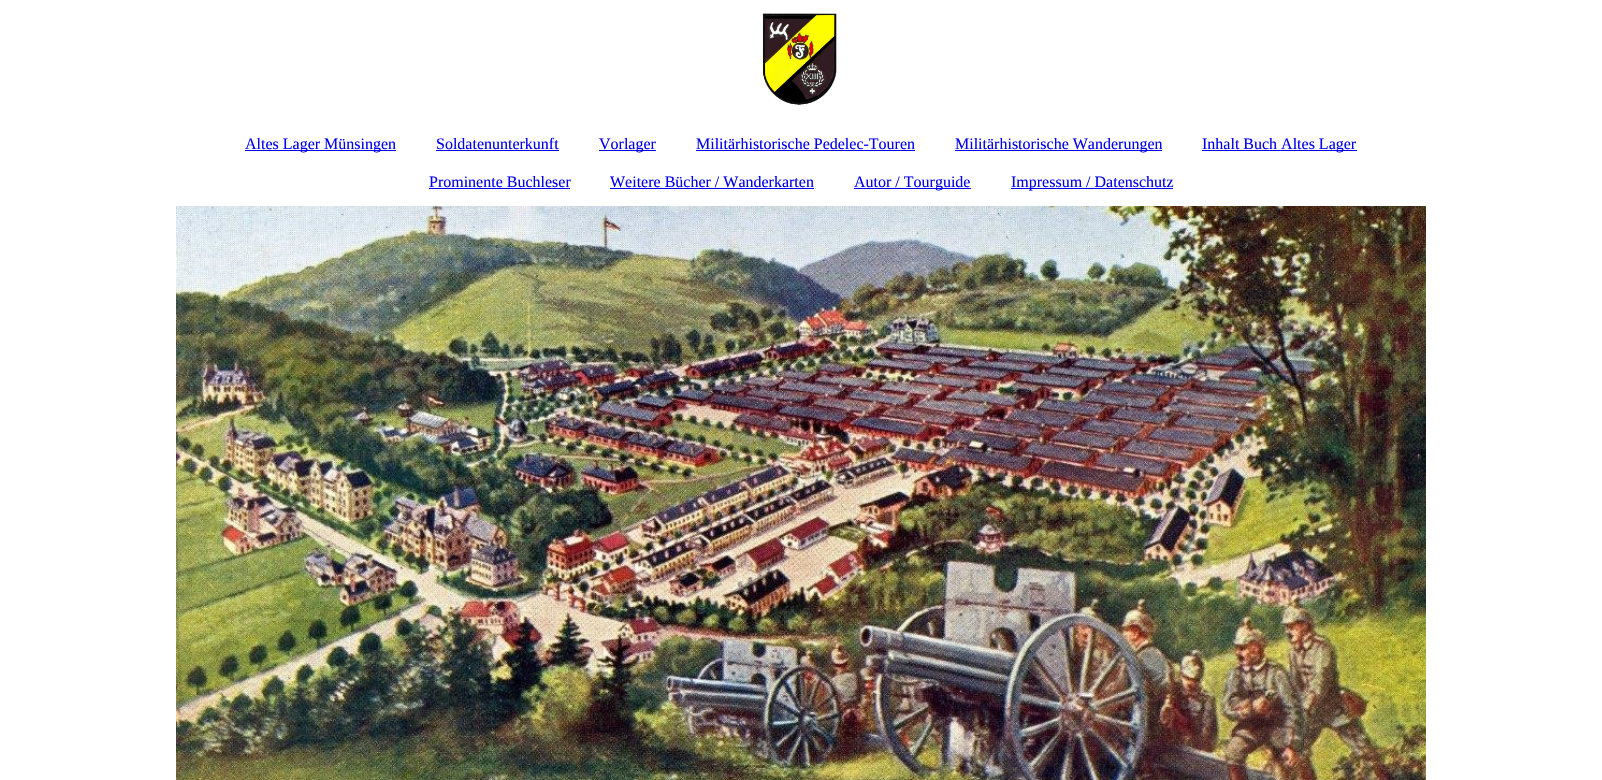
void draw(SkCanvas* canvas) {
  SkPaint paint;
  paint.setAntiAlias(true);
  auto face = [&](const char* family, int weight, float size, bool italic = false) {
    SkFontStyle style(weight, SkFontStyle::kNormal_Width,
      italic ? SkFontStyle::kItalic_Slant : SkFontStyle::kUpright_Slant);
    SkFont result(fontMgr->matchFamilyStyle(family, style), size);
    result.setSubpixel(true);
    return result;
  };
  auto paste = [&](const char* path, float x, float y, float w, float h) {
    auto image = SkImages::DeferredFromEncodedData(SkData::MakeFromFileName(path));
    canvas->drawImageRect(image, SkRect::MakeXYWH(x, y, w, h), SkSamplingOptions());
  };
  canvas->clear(0xffffffff);
  paste("img/1.png", 762, 13, 75, 92);
  {
    const struct { float x, y, w, h; SkColor color; } items[] = {
      {245, 150, 151, 1, 0xff0000ee},
      {436, 150, 123, 1, 0xff0000ee},
      {599, 150, 57, 1, 0xff0000ee},
      {696, 150, 219, 1, 0xff0000ee},
      {955, 150, 207, 1, 0xff0000ee},
      {1202, 150, 155, 1, 0xff0000ee},
      {429, 188, 141, 1, 0xff0000ee},
      {610, 188, 204, 1, 0xff0000ee},
      {854, 188, 117, 1, 0xff0000ee},
      {1011, 188, 162, 1, 0xff0000ee},
    };
    for (auto [x, y, w, h, color] : items) {
      paint.setColor(color);
      canvas->drawRect(SkRect::MakeXYWH(x, y, w, h), paint);
    }
  }
  paste("img/2.png", 176, 206, 1250, 574);
  auto f0 = face("Liberation Serif", 400, 16);
  {
    const struct { const char* s; float x, y; } items[] = {
      {"Altes Lager Münsingen", 245, 149},
      {"Soldatenunterkunft", 436, 149},
      {"Vorlager", 599, 149},
      {"Militärhistorische Pedelec-Touren", 696, 149},
      {"Militärhistorische Wanderungen", 955, 149},
      {"Inhalt Buch Altes Lager", 1202, 149},
      {"Prominente Buchleser", 429, 187},
      {"Weitere Bücher / Wanderkarten", 610, 187},
      {"Autor / Tourguide", 854, 187},
      {"Impressum / Datenschutz", 1011, 187},
    };
    for (auto [s, x, y] : items) {
      canvas->drawString(s, x, y, f0, paint);
    }
  }
}
